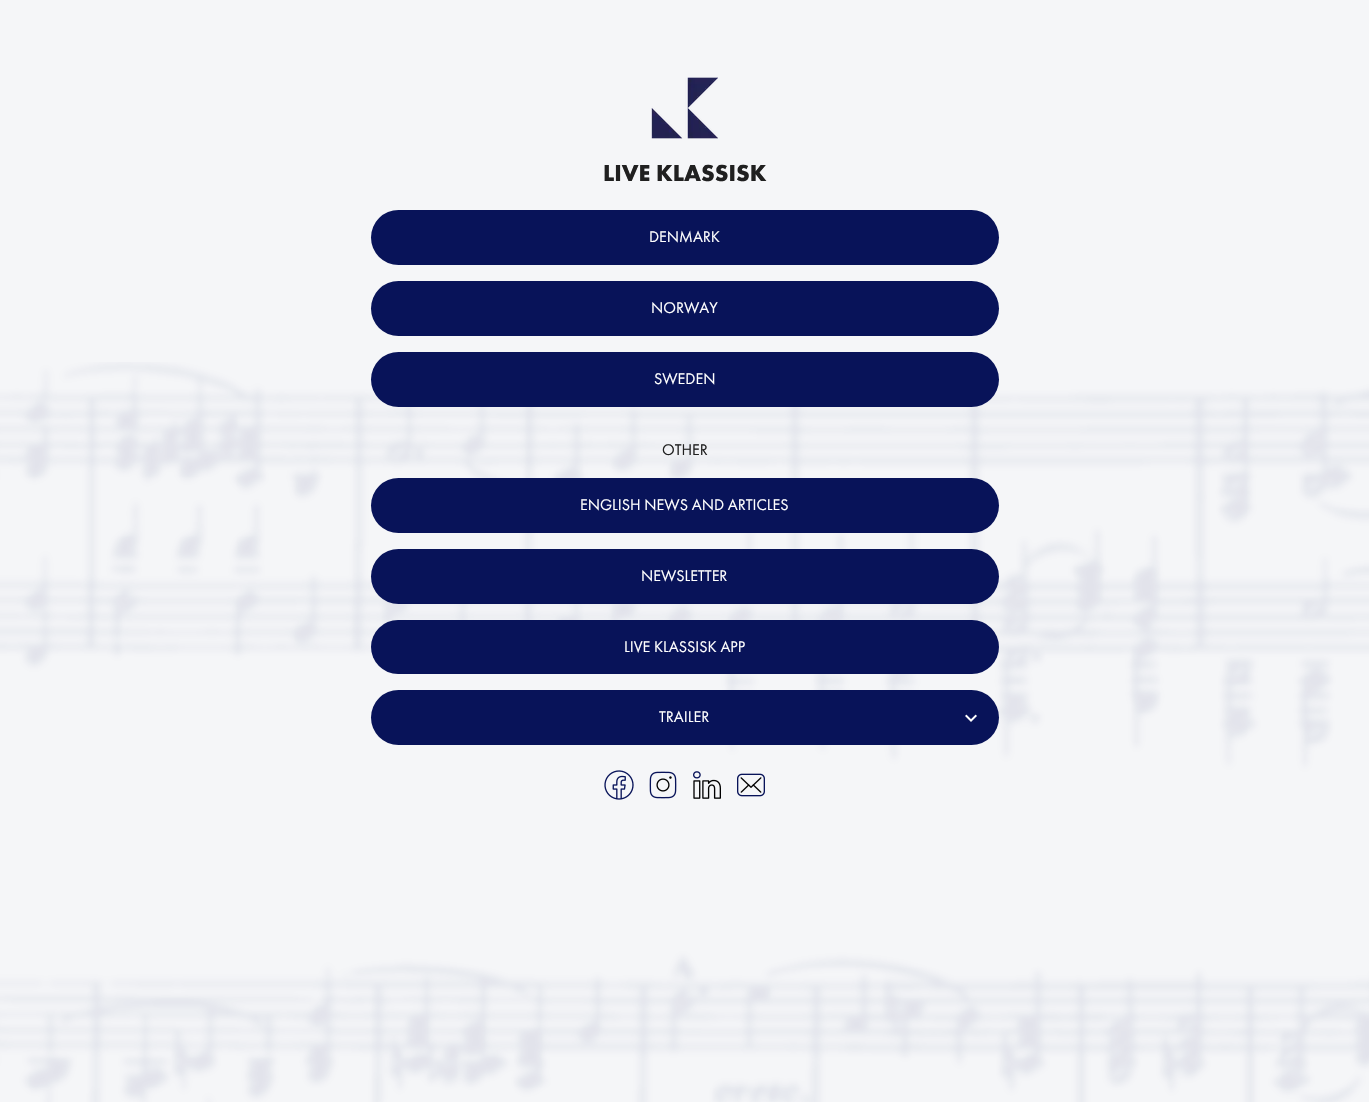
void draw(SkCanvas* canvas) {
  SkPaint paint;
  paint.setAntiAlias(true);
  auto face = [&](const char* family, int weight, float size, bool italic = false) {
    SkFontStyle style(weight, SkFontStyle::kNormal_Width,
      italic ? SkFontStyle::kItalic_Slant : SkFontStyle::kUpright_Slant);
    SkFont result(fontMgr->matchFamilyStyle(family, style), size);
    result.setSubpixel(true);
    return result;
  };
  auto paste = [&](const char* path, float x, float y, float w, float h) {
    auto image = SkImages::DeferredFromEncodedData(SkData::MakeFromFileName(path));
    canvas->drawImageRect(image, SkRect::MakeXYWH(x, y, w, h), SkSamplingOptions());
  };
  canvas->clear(0xfff5f6f8);
  paste("img/1.png", 0, 362, 1369, 740);
  paste("img/2.png", 651, 77, 67, 62);
  paint.setColor(0xff081359);
  canvas->drawRoundRect(SkRect::MakeXYWH(371, 210, 628, 55), 27.5f, 27.5f, paint);
  canvas->drawRoundRect(SkRect::MakeXYWH(371, 281, 628, 55), 27.5f, 27.5f, paint);
  canvas->drawRoundRect(SkRect::MakeXYWH(371, 352, 628, 55), 27.5f, 27.5f, paint);
  canvas->drawRoundRect(SkRect::MakeXYWH(371, 478, 628, 55), 27.5f, 27.5f, paint);
  canvas->drawRoundRect(SkRect::MakeXYWH(371, 549, 628, 55), 27.5f, 27.5f, paint);
  canvas->drawRoundRect(SkRect::MakeXYWH(371, 620, 628, 54), 27, 27, paint);
  canvas->drawRoundRect(SkRect::MakeXYWH(371, 690, 628, 55), 27.5f, 27.5f, paint);
  paste("img/3.png", 965, 714, 12, 8);
  paste("img/4.png", 604, 770, 30, 30);
  paste("img/5.png", 649, 771, 28, 28);
  paste("img/6.png", 693, 771, 28, 28);
  paste("img/7.png", 737, 773, 28, 24);
  auto f0 = face("Futura PT", 700, 24);
  paint.setColor(0xff202020);
  canvas->drawString("LIVE KLASSISK", 603, 181, f0, paint);
  auto f1 = face("Futura PT", 400, 16);
  paint.setColor(0xffffffff);
  {
    const struct { const char* s; float x, y; } items[] = {
      {"DENMARK", 649, 242},
      {"NORWAY", 651, 313},
      {"SWEDEN", 654, 384},
    };
    for (auto [s, x, y] : items) {
      canvas->drawString(s, x, y, f1, paint);
    }
  }
  paint.setColor(0xff202020);
  canvas->drawString("OTHER", 662, 455, f1, paint);
  paint.setColor(0xffffffff);
  {
    const struct { const char* s; float x, y; } items[] = {
      {"ENGLISH NEWS AND ARTICLES", 580, 510},
      {"NEWSLETTER", 641, 581},
      {"LIVE KLASSISK APP", 624, 652},
      {"TRAILER", 659, 722},
    };
    for (auto [s, x, y] : items) {
      canvas->drawString(s, x, y, f1, paint);
    }
  }
}
